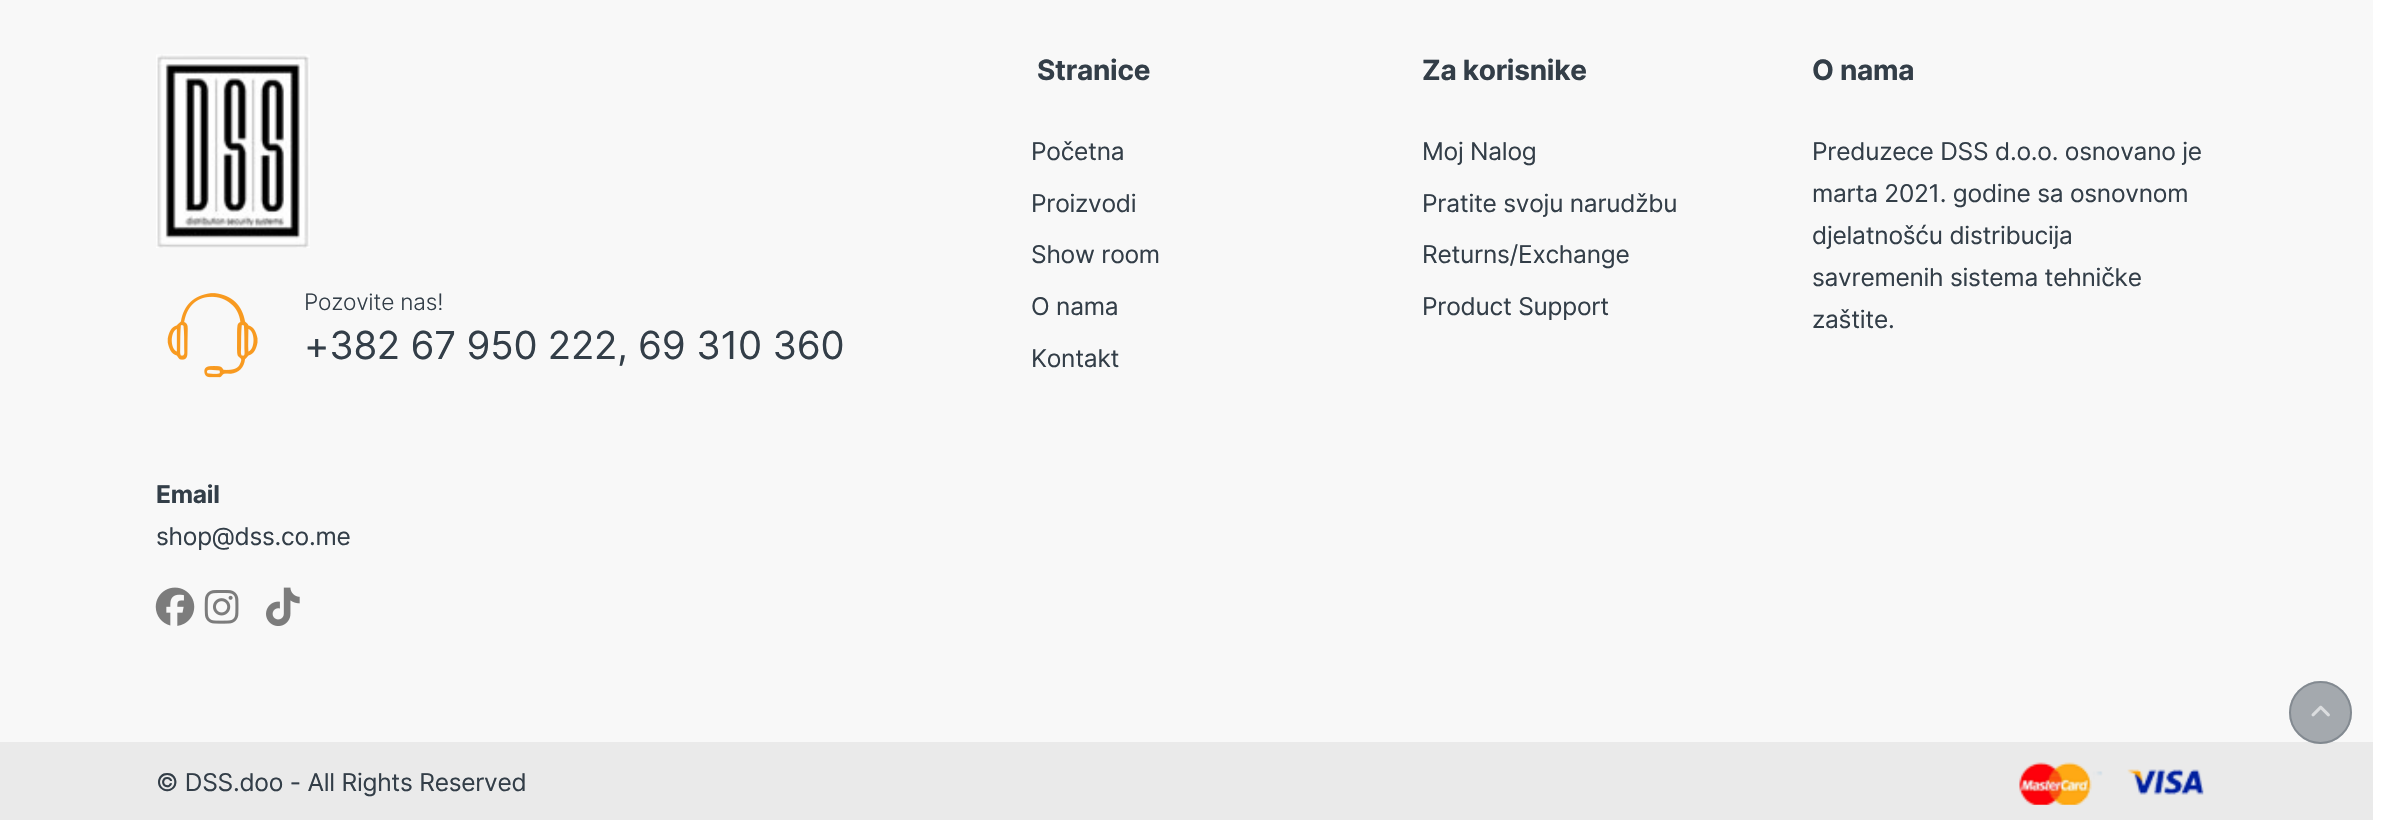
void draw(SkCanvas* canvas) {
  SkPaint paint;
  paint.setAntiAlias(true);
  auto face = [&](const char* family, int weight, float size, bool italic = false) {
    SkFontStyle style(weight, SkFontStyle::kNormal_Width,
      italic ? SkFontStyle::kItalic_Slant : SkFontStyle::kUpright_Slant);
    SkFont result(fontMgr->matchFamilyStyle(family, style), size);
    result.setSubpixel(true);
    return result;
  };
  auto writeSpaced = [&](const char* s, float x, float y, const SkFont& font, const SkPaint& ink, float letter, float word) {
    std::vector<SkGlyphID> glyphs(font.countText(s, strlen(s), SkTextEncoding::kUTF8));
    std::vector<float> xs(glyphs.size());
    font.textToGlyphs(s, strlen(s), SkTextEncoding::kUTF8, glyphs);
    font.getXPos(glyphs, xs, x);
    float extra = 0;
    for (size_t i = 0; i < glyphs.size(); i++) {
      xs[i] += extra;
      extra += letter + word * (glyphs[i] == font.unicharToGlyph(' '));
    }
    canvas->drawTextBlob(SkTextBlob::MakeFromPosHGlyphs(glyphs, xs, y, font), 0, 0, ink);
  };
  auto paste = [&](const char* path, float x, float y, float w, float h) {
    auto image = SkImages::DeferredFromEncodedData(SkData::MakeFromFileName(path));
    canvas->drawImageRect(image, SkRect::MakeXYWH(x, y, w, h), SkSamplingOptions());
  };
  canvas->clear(0xffffffff);
  paint.setColor(0xfff8f8f8);
  canvas->drawRect(SkRect::MakeXYWH(0, 0, 2373, 742), paint);
  paste("img/1.png", 156, 54, 154, 194);
  paste("img/2.png", 167, 293, 91, 85);
  paste("img/3.png", 155, 587, 40, 39);
  paste("img/4.png", 204, 590, 35, 34);
  paste("img/5.png", 266, 587, 34, 39);
  paint.setColor(0xffeaeaea);
  canvas->drawRect(SkRect::MakeXYWH(0, 742, 2373, 78), paint);
  paste("img/6.png", 2019, 762, 185, 43);
  paint.setColor(0x996c757d);
  canvas->drawCircle(2320.5f, 712.5f, 31.5f, paint);
  paint.setStroke(true);
  paint.setStrokeWidth(2);
  canvas->drawCircle(2320.5f, 712.5f, 30.5f, paint);
  paste("img/7.png", 2311, 705, 19, 12);
  auto f0 = face("Inter", 700, 28);
  paint.setStroke(false);
  paint.setColor(0xff333e48);
  writeSpaced("Stranice", 1037, 80, f0, paint, -0.25f, 0);
  auto f1 = face("Inter", 400, 24.5f);
  {
    const struct { const char* s; float x, y; } items[] = {
      {"Početna", 1031, 160},
      {"Proizvodi", 1031, 212},
      {"Show room", 1031, 263},
      {"O nama", 1031, 315},
      {"Kontakt", 1031, 367},
    };
    for (auto [s, x, y] : items) {
      writeSpaced(s, x, y, f1, paint, -0.25f, 0);
    }
  }
  writeSpaced("Za korisnike", 1422, 80, f0, paint, -0.25f, 0);
  {
    const struct { const char* s; float x, y; } items[] = {
      {"Moj Nalog", 1422, 160},
      {"Pratite svoju narudžbu", 1422, 212},
      {"Returns/Exchange", 1422, 263},
      {"Product Support", 1422, 315},
    };
    for (auto [s, x, y] : items) {
      writeSpaced(s, x, y, f1, paint, -0.25f, 0);
    }
  }
  writeSpaced("O nama", 1812, 80, f0, paint, -0.25f, 0);
  {
    const struct { const char* s; float x, y; } items[] = {
      {"Preduzece DSS d.o.o. osnovano je", 1812, 160},
      {"marta 2021. godine sa osnovnom", 1812, 202},
      {"djelatnošću distribucija", 1812, 244},
      {"savremenih sistema tehničke", 1812, 286},
      {"zaštite.", 1812, 328},
    };
    for (auto [s, x, y] : items) {
      writeSpaced(s, x, y, f1, paint, -0.25f, 0);
    }
  }
  auto f2 = face("Inter", 300, 22.75f);
  writeSpaced("Pozovite nas!", 304, 310, f2, paint, -0.25f, 0);
  auto f3 = face("Inter", 400, 38.5f);
  writeSpaced("+382 67 950 222, 69 310 360", 304, 359, f3, paint, -0.25f, 0);
  auto f4 = face("Inter", 700, 24.5f);
  writeSpaced("Email", 156, 503, f4, paint, -0.25f, 0);
  writeSpaced("shop@dss.co.me", 156, 545, f1, paint, -0.25f, 0);
  writeSpaced("© DSS.doo - All Rights Reserved", 156, 791, f1, paint, -0.25f, 0);
}
